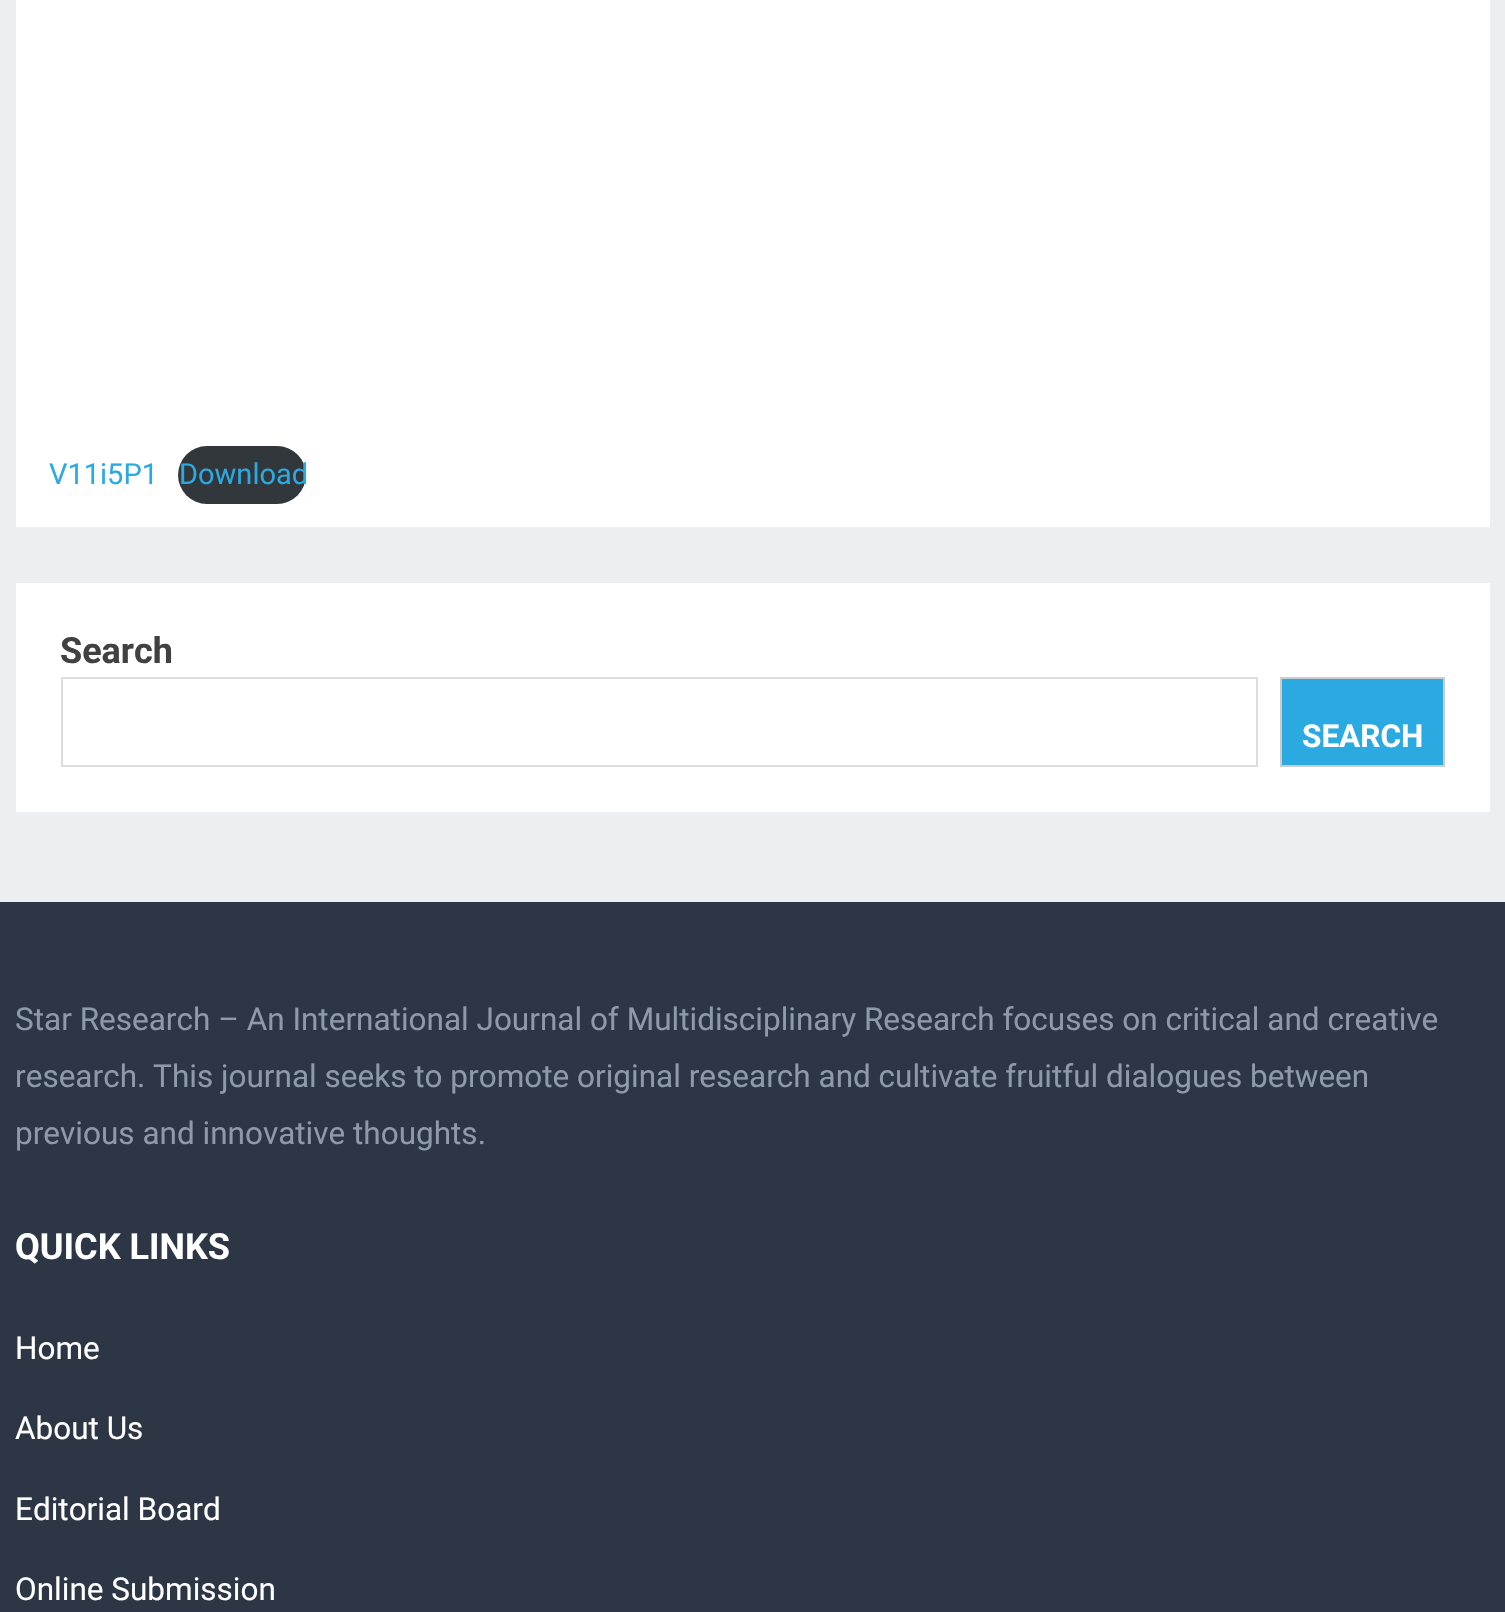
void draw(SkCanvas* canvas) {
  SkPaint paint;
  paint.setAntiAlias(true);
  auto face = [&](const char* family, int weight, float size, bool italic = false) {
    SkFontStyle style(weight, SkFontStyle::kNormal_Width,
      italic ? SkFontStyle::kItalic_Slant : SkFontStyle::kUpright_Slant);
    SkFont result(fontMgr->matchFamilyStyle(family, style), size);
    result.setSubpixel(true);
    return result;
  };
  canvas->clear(0xffeceff1);
  paint.setColor(0xffffffff);
  canvas->drawRect(SkRect::MakeXYWH(16, 0, 1474, 527), paint);
  paint.setColor(0xff32373c);
  canvas->drawRoundRect(SkRect::MakeXYWH(178, 446, 128, 58), 29, 29, paint);
  paint.setColor(0xffffffff);
  canvas->drawRect(SkRect::MakeXYWH(16, 583, 1474, 229), paint);
  paint.setStroke(true);
  paint.setStrokeWidth(2);
  paint.setColor(0xffdddddd);
  canvas->drawRect(SkRect::MakeXYWH(62, 678, 1195, 88), paint);
  paint.setStroke(false);
  paint.setColor(0xff2baae1);
  canvas->drawRect(SkRect::MakeXYWH(1281, 678, 163, 88), paint);
  paint.setStroke(true);
  paint.setColor(0xffcccccc);
  canvas->drawRect(SkRect::MakeXYWH(1281, 678, 163, 88), paint);
  paint.setStroke(false);
  paint.setColor(0xff2c3644);
  canvas->drawRect(SkRect::MakeXYWH(0, 902, 1505, 710), paint);
  auto f0 = face("Roboto", 400, 29);
  paint.setColor(0xff2baae1);
  canvas->drawString("V11i5P1", 49, 484, f0, paint);
  canvas->drawString("Download", 179, 484, f0, paint);
  auto f1 = face("Roboto", 700, 36);
  paint.setColor(0xff414141);
  canvas->drawString("Search", 60, 663, f1, paint);
  auto f2 = face("Roboto", 700, 31.5f);
  paint.setColor(0xffffffff);
  canvas->drawString("SEARCH", 1302, 747, f2, paint);
  auto f3 = face("Roboto", 400, 31.5f);
  paint.setColor(0xff8e99a9);
  {
    const struct { const char* s; float x, y; } items[] = {
      {"Star Research – An International Journal of Multidisciplinary Research focuses on critical and creative", 15, 1030},
      {"research. This journal seeks to promote original research and cultivate fruitful dialogues between", 15, 1087},
      {"previous and innovative thoughts.", 15, 1144},
    };
    for (auto [s, x, y] : items) {
      canvas->drawString(s, x, y, f3, paint);
    }
  }
  paint.setColor(0xffffffff);
  canvas->drawString("QUICK LINKS", 15, 1259, f1, paint);
  {
    const struct { const char* s; float x, y; } items[] = {
      {"Home", 15, 1359},
      {"About Us", 15, 1439},
      {"Editorial Board", 15, 1520},
      {"Online Submission", 15, 1600},
    };
    for (auto [s, x, y] : items) {
      canvas->drawString(s, x, y, f3, paint);
    }
  }
}
